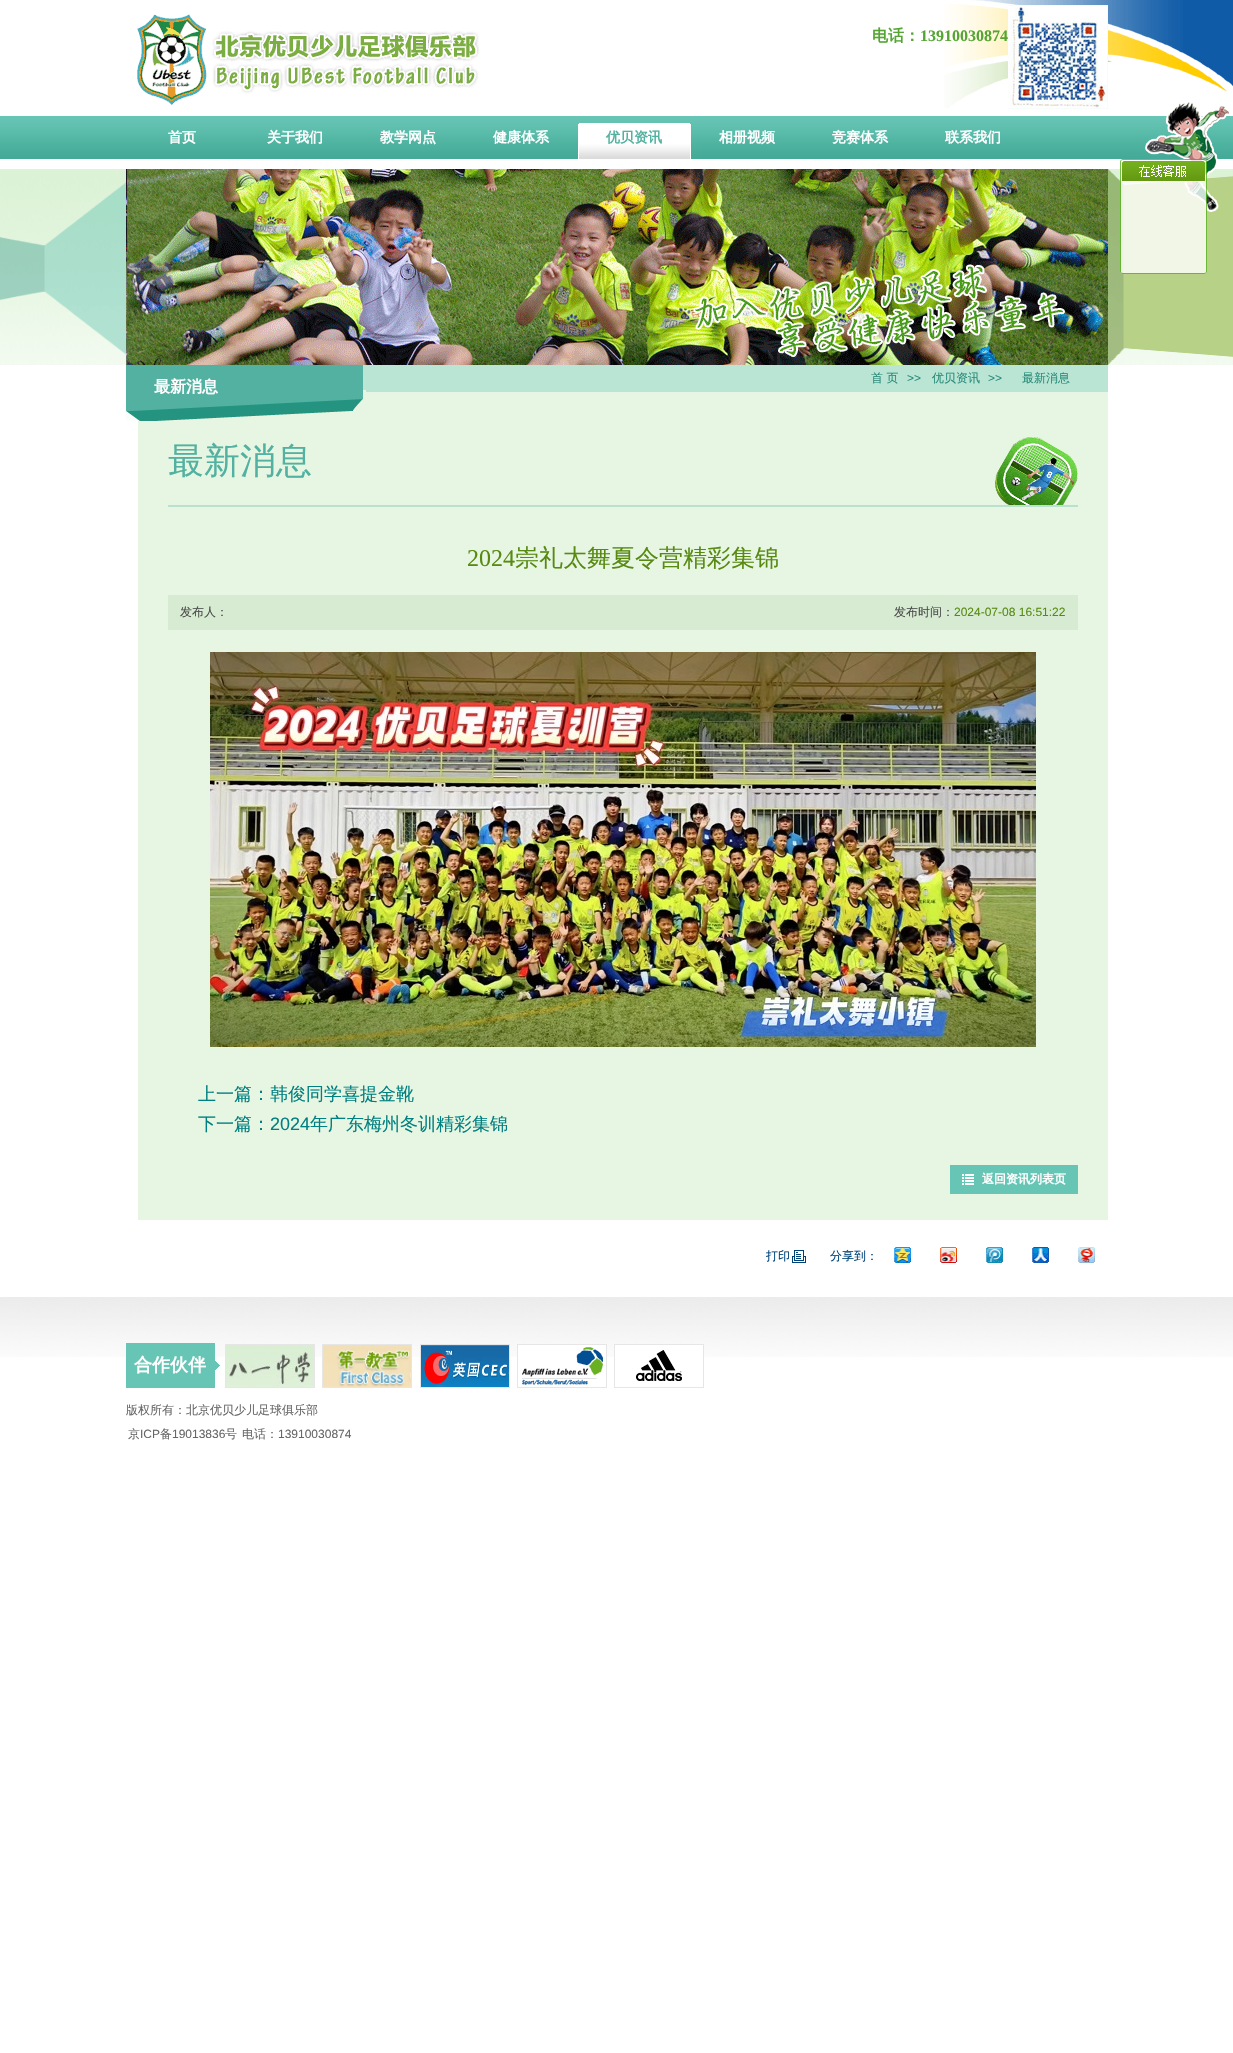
void draw(SkCanvas* canvas) {
  SkPaint paint;
  paint.setAntiAlias(true);
  auto face = [&](const char* family, int weight, float size, bool italic = false) {
    SkFontStyle style(weight, SkFontStyle::kNormal_Width,
      italic ? SkFontStyle::kItalic_Slant : SkFontStyle::kUpright_Slant);
    SkFont result(fontMgr->matchFamilyStyle(family, style), size);
    result.setSubpixel(true);
    return result;
  };
  auto paste = [&](const char* path, float x, float y, float w, float h) {
    auto image = SkImages::DeferredFromEncodedData(SkData::MakeFromFileName(path));
    canvas->drawImageRect(image, SkRect::MakeXYWH(x, y, w, h), SkSamplingOptions());
  };
  canvas->clear(0xffffffff);
  paste("img/1.png", 944, 0, 289, 108);
  paste("img/2.png", 137, 14, 343, 91);
  paste("img/3.png", 1008, 5, 100, 104);
  paste("img/4.png", 0, 116, 1233, 43);
  paste("img/5.png", 578, 123, 113, 36);
  paste("img/6.png", 0, 169, 1233, 196);
  paste("img/7.png", 126, 169, 982, 196);
  paint.setColor(0xffe7f6e3);
  canvas->drawRect(SkRect::MakeXYWH(366, 392, 742, 29), paint);
  paste("img/8.png", 126, 365, 240, 56);
  paint.setColor(0xffbae5d4);
  canvas->drawRect(SkRect::MakeXYWH(366, 365, 742, 27), paint);
  paint.setColor(0xffe7f6e3);
  canvas->drawRect(SkRect::MakeXYWH(138, 421, 970, 799), paint);
  paste("img/9.png", 995, 437, 83, 68);
  paint.setColor(0xffbae1cf);
  canvas->drawRect(SkRect::MakeXYWH(168, 505, 910, 2), paint);
  paint.setColor(0xffd6ebd1);
  canvas->drawRect(SkRect::MakeXYWH(168, 595, 910, 35), paint);
  paste("img/10.png", 210, 652, 826, 395);
  paint.setColor(0xff66c5b4);
  canvas->drawRect(SkRect::MakeXYWH(950, 1165, 128, 29), paint);
  paste("img/11.png", 962, 1174, 12, 11);
  paste("img/12.png", 792, 1250, 14, 13);
  paste("img/13.png", 894, 1247, 17, 16);
  paste("img/14.png", 940, 1247, 17, 16);
  paste("img/15.png", 986, 1247, 17, 16);
  paste("img/16.png", 1032, 1247, 17, 16);
  paste("img/17.png", 1078, 1247, 17, 16);
  paste("img/18.png", 0, 1297, 1233, 60);
  paste("img/19.png", 1120, 102, 109, 172);
  paint.setStroke(true);
  paint.setStrokeWidth(1);
  paint.setColor(0xffe6e6e6);
  canvas->drawRect(SkRect::MakeXYWH(225.5f, 1344.5f, 89, 43), paint);
  canvas->drawRect(SkRect::MakeXYWH(322.5f, 1344.5f, 89, 43), paint);
  canvas->drawRect(SkRect::MakeXYWH(420.5f, 1344.5f, 89, 43), paint);
  canvas->drawRect(SkRect::MakeXYWH(517.5f, 1344.5f, 89, 43), paint);
  canvas->drawRect(SkRect::MakeXYWH(614.5f, 1344.5f, 89, 43), paint);
  paste("img/20.png", 126, 1343, 94, 45);
  paste("img/21.png", 226, 1345, 88, 42);
  paste("img/22.png", 323, 1345, 88, 42);
  paste("img/23.png", 421, 1345, 88, 42);
  paste("img/24.png", 518, 1345, 88, 40);
  paste("img/25.png", 615, 1345, 88, 36);
  auto f0 = face("WenQuanYi Zen Hei", 700, 16);
  paint.setStroke(false);
  paint.setColor(0xff56a534);
  canvas->drawString("电话：", 872, 41, f0, paint);
  auto f1 = face("Liberation Serif", 700, 16);
  canvas->drawString("13910030874", 920, 41, f1, paint);
  auto f2 = face("WenQuanYi Zen Hei", 700, 14);
  paint.setColor(0xffffffff);
  {
    const struct { const char* s; float x, y; } items[] = {
      {"首页", 168, 142},
      {"关于我们", 267, 142},
      {"教学网点", 380, 142},
      {"健康体系", 493, 142},
    };
    for (auto [s, x, y] : items) {
      canvas->drawString(s, x, y, f2, paint);
    }
  }
  paint.setColor(0xff52b1a0);
  canvas->drawString("优贝资讯", 606, 142, f2, paint);
  paint.setColor(0xffffffff);
  {
    const struct { const char* s; float x, y; } items[] = {
      {"相册视频", 719, 142},
      {"竞赛体系", 832, 142},
      {"联系我们", 945, 142},
    };
    for (auto [s, x, y] : items) {
      canvas->drawString(s, x, y, f2, paint);
    }
  }
  canvas->drawString("最新消息", 154, 392, f0, paint);
  auto f3 = face("WenQuanYi Zen Hei", 500, 12);
  paint.setColor(0xff298b7a);
  canvas->drawString("首 页", 871, 382, f3, paint);
  auto f4 = face("Liberation Sans", 400, 12);
  canvas->drawString(">>", 907, 382, f4, paint);
  canvas->drawString("优贝资讯", 932, 382, f3, paint);
  canvas->drawString(">>", 988, 382, f4, paint);
  canvas->drawString("最新消息", 1022, 382, f3, paint);
  auto f5 = face("WenQuanYi Zen Hei", 500, 36);
  paint.setColor(0xff52b1a0);
  canvas->drawString("最新消息", 168, 473, f5, paint);
  auto f6 = face("Liberation Serif", 400, 24);
  paint.setColor(0xff588a12);
  canvas->drawString("2024", 467, 566, f6, paint);
  auto f7 = face("WenQuanYi Zen Hei", 500, 24);
  canvas->drawString("崇礼太舞夏令营精彩集锦", 515, 566, f7, paint);
  paint.setColor(0xff4c4c4c);
  canvas->drawString("发布人：", 180, 616, f3, paint);
  canvas->drawString("发布时间：", 894, 616, f3, paint);
  paint.setColor(0xff588a12);
  canvas->drawString("2024-07-08 16:51:22", 954, 616, f4, paint);
  auto f8 = face("WenQuanYi Zen Hei", 500, 18);
  paint.setColor(0xff008080);
  canvas->drawString("上一篇：韩俊同学喜提金靴", 198, 1100, f8, paint);
  canvas->drawString("下一篇：", 198, 1130, f8, paint);
  auto f9 = face("Liberation Sans", 400, 18);
  canvas->drawString("2024", 270, 1130, f9, paint);
  canvas->drawString("年广东梅州冬训精彩集锦", 310, 1130, f8, paint);
  auto f10 = face("WenQuanYi Zen Hei", 700, 12);
  paint.setColor(0xffffffff);
  canvas->drawString("返回资讯列表页", 982, 1183, f10, paint);
  paint.setColor(0xff004276);
  canvas->drawString("打印", 766, 1260, f3, paint);
  canvas->drawString("分享到：", 830, 1260, f3, paint);
  auto f11 = face("WenQuanYi Zen Hei", 700, 18);
  paint.setColor(0xffffffff);
  canvas->drawString("合作伙伴", 134, 1371, f11, paint);
  paint.setColor(0xff666666);
  canvas->drawString("版权所有：北京优贝少儿足球俱乐部", 126, 1414, f3, paint);
  canvas->drawString("京", 128, 1438, f3, paint);
  canvas->drawString("ICP", 140, 1438, f4, paint);
  canvas->drawString("备", 160, 1438, f3, paint);
  canvas->drawString("19013836", 172, 1438, f4, paint);
  canvas->drawString("号", 225, 1438, f3, paint);
  canvas->drawString("电话：", 242, 1438, f3, paint);
  canvas->drawString("13910030874", 278, 1438, f4, paint);
}
